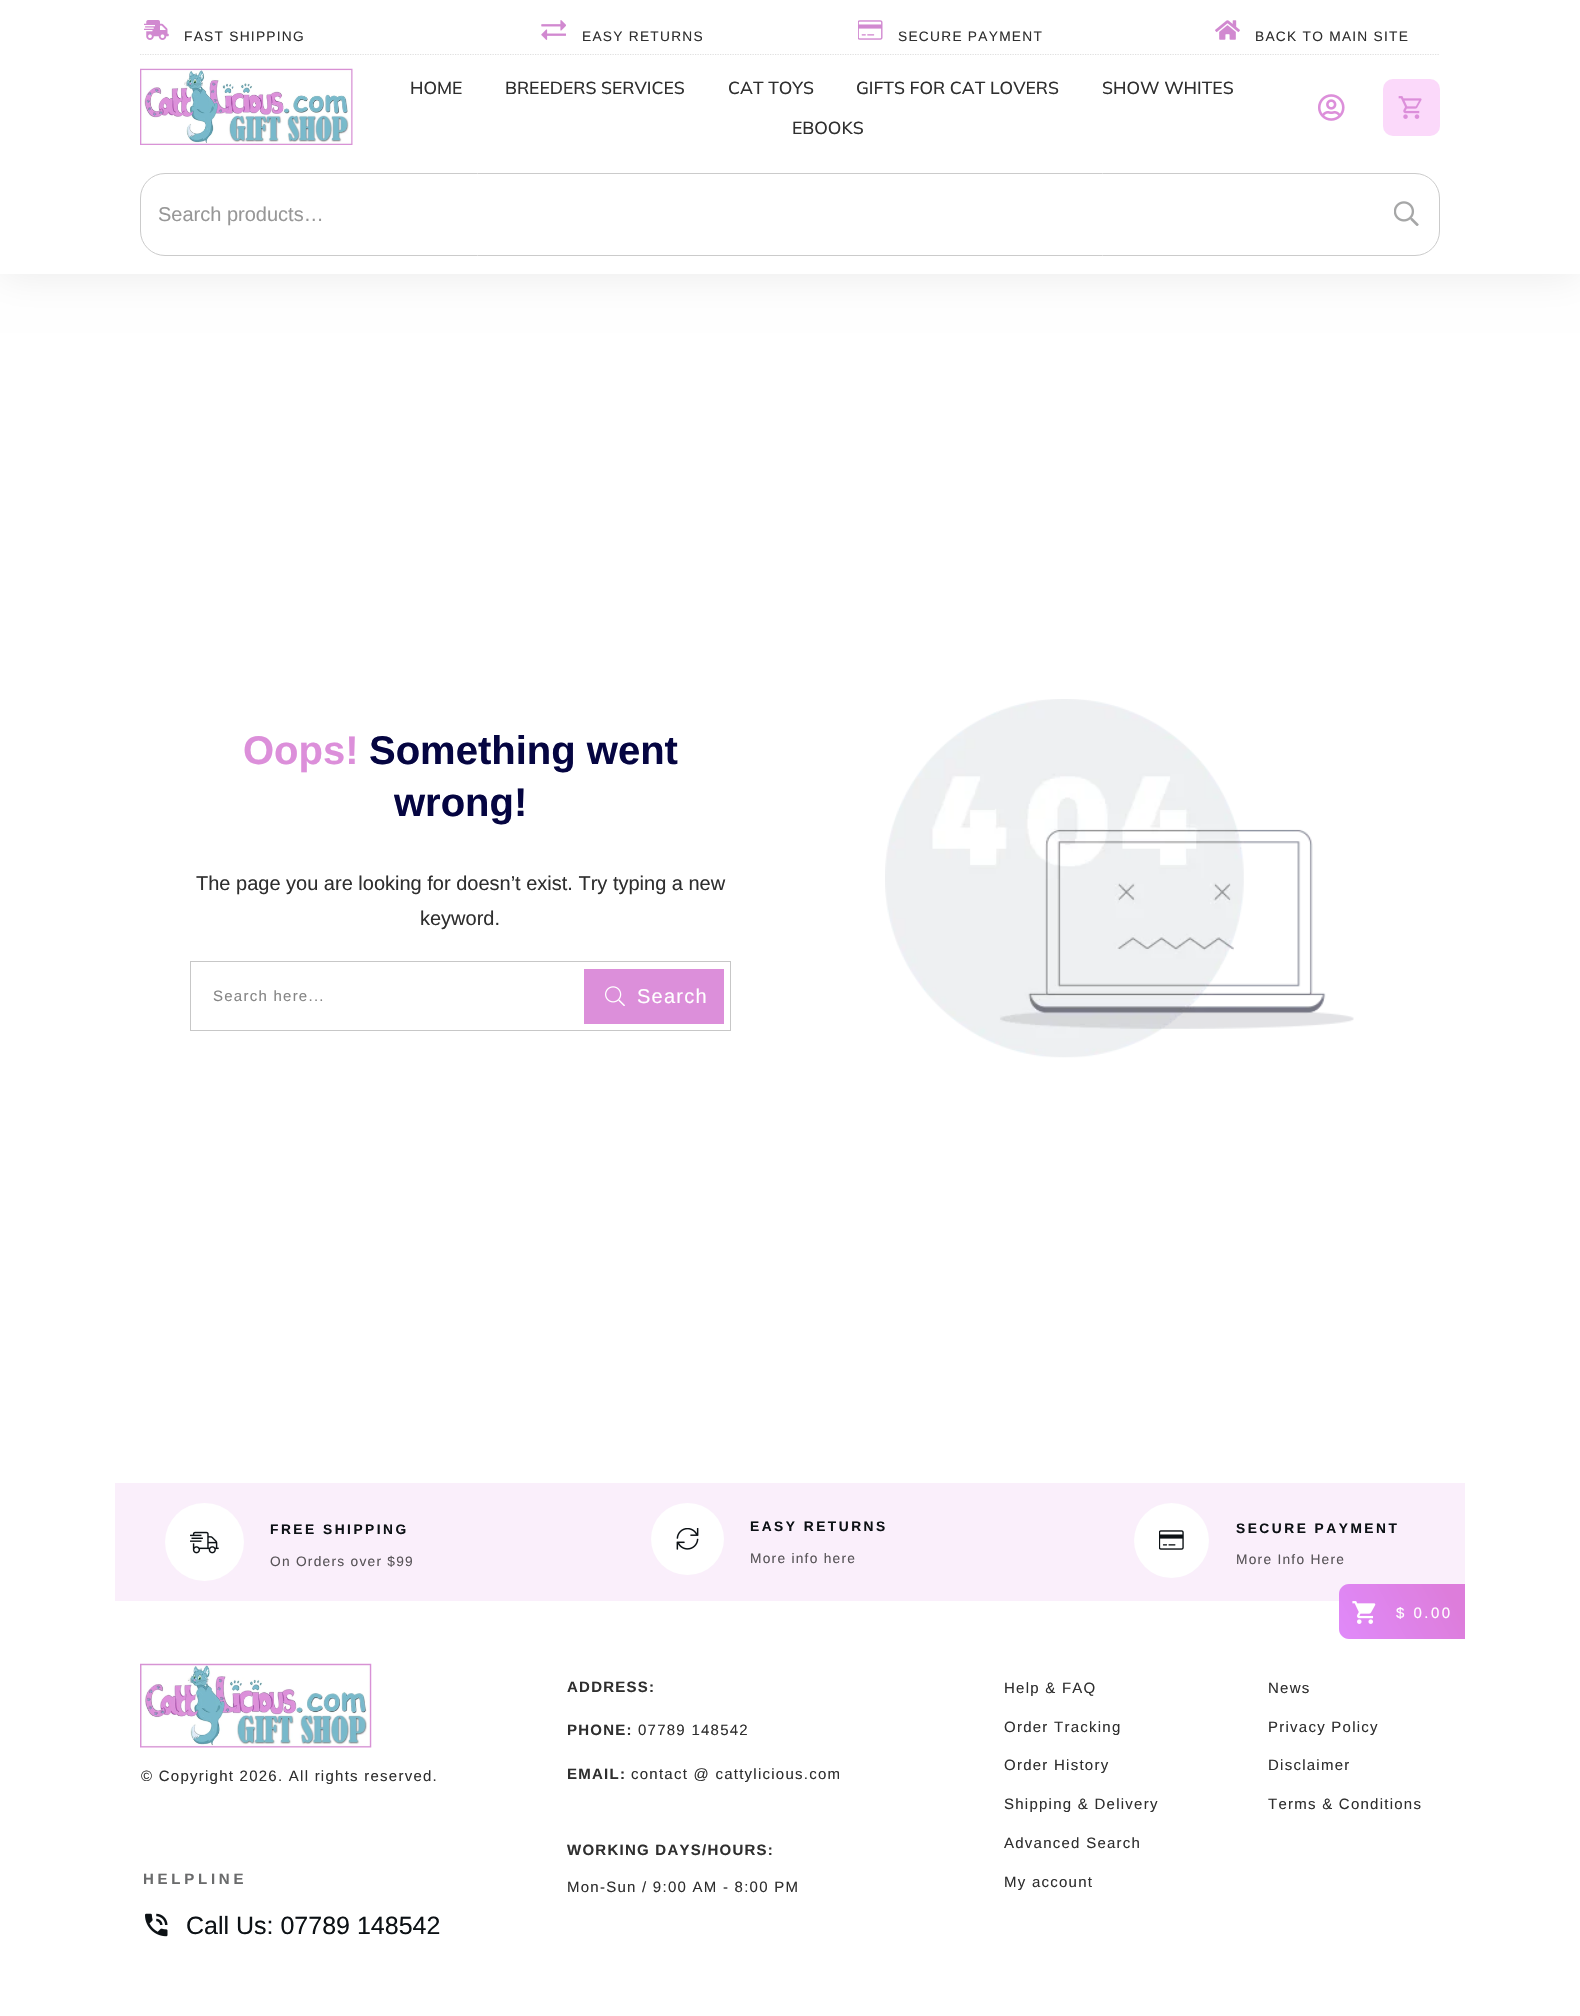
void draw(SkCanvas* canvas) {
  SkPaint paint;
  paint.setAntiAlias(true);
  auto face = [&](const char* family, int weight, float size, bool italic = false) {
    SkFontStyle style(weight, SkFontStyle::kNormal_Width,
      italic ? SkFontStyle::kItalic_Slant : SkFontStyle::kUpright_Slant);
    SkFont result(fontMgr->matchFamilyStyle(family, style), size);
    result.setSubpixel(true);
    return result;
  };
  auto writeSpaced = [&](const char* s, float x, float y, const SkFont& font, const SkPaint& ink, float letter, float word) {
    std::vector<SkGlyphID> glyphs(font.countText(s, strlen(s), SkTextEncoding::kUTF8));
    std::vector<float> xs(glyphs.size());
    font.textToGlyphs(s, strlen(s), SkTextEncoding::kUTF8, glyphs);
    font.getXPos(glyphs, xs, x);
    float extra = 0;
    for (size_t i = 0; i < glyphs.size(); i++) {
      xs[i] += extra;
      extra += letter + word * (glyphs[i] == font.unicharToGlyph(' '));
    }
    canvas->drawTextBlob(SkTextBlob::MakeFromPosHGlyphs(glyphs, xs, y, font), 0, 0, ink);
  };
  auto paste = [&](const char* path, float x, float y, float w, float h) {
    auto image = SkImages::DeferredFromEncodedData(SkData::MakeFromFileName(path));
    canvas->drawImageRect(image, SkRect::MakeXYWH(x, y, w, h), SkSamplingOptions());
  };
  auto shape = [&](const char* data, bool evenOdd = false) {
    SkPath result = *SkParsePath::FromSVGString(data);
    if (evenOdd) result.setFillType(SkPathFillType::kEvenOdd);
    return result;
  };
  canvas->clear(0xffffffff);
  paint.setColor(0x14000000);
  paint.setMaskFilter(SkMaskFilter::MakeBlur(kNormal_SkBlurStyle, 19));
  canvas->drawRect(SkRect::MakeXYWH(0, 3, 1580, 273), paint);
  paint.setMaskFilter(nullptr);
  paint.setColor(0xffffffff);
  canvas->drawRect(SkRect::MakeXYWH(0, 0, 1580, 274), paint);
  paint.setStroke(true);
  paint.setStrokeWidth(1.2f);
  paint.setColor(0xffe0e0e0);
  paint.setPathEffect(SkDashPathEffect::Make({{1.25f, 1.25f}}, 0));
  canvas->drawPath(shape("M140 54.5H1440"), paint);
  paint.setPathEffect(nullptr);
  paste("img/1.png", 144, 20, 25, 20);
  paste("img/2.png", 541, 20, 25, 20);
  paste("img/3.png", 858, 20, 25, 20);
  paste("img/4.png", 1215, 20, 25, 20);
  paste("img/5.png", 140, 68, 213, 77);
  paste("img/6.png", 1318, 94, 27, 27);
  paint.setStroke(false);
  paint.setColor(0xfffbd9fa);
  canvas->drawRoundRect(SkRect::MakeXYWH(1383, 79, 57, 57), 10, 10, paint);
  paste("img/7.png", 1398, 96, 24, 23);
  paint.setStroke(true);
  paint.setStrokeWidth(1);
  paint.setColor(0xffcbcbcb);
  canvas->drawRoundRect(SkRect::MakeXYWH(140.5f, 173.5f, 1299, 82), 24.5f, 24.5f, paint);
  paste("img/8.png", 1394, 201, 25, 25);
  paint.setColor(0xffc7c7c7);
  canvas->drawRect(SkRect::MakeXYWH(190.5f, 961.5f, 540, 69), paint);
  paint.setStroke(false);
  paint.setColor(0xffdc8fda);
  canvas->drawRect(SkRect::MakeXYWH(584, 969, 140, 55), paint);
  paste("img/9.png", 605, 986, 20, 20);
  paste("img/10.png", 885, 699, 469, 359);
  paint.setColor(0xfffaeffb);
  canvas->drawRect(SkRect::MakeXYWH(115, 1483, 1350, 118), paint);
  paint.setColor(0xffffffff);
  canvas->drawRoundRect(SkRect::MakeXYWH(165, 1503, 79, 78), 39, 39, paint);
  paste("img/11.png", 190, 1531, 29, 23);
  canvas->drawRoundRect(SkRect::MakeXYWH(651, 1503, 73, 72), 36, 36, paint);
  paste("img/12.png", 676, 1528, 23, 22);
  canvas->drawCircle(1171.5f, 1540.5f, 37.5f, paint);
  paste("img/13.png", 1159, 1530, 25, 20);
  {
    const SkColor colors[] = {0xffdc8fda, 0xffdf9eff};
    const float stops[] = {0.14f, 1};
    const SkPoint ends[] = {{1462, 1578}, {1342, 1644}};
    paint.setShader(SkGradientShader::MakeLinear(ends, colors, stops, 2, SkTileMode::kClamp));
    paint.setAlpha(255);
  }
  canvas->drawPath(shape("M1349 1584H1465V1639H1349C1343.5 1639 1339 1634.5 1339 1629V1594C1339 1588.5 1343.5 1584 1349 1584Z"), paint);
  paint.setShader(nullptr);
  paint.setColor(0x2ee62de3);
  canvas->drawPath(shape("M1349 1584H1465V1639H1349C1343.5 1639 1339 1634.5 1339 1629V1594C1339 1588.5 1343.5 1584 1349 1584Z"), paint);
  paste("img/14.png", 1352, 1601, 24, 23);
  paste("img/15.png", 140, 1663, 232, 85);
  paste("img/16.png", 145, 1913, 23, 24);
  auto f0 = face("Liberation Sans", 400, 13.75f);
  paint.setColor(0xff2f2f2f);
  {
    const struct { const char* s; float x, y; } items[] = {
      {"FAST SHIPPING", 184, 41},
      {"EASY RETURNS", 582, 41},
      {"SECURE PAYMENT", 898, 41},
      {"BACK TO MAIN SITE", 1255, 41},
    };
    for (auto [s, x, y] : items) {
      writeSpaced(s, x, y, f0, paint, 1.25f, 0);
    }
  }
  auto f1 = face("Mulish", 500, 17.5f);
  {
    const struct { const char* s; float x, y; } items[] = {
      {"HOME", 410, 94},
      {"BREEDERS SERVICES", 505, 94},
      {"CAT TOYS", 728, 94},
      {"GIFTS FOR CAT LOVERS", 856, 94},
      {"SHOW WHITES", 1102, 94},
      {"EBOOKS", 792, 134},
    };
    for (auto [s, x, y] : items) {
      canvas->drawString(s, x, y, f1, paint);
    }
  }
  auto f2 = face("Liberation Sans", 400, 20);
  paint.setColor(0xff979797);
  canvas->drawString("Search products…", 158, 221, f2, paint);
  auto f3 = face("Liberation Sans", 700, 40);
  paint.setColor(0xffdc8fda);
  canvas->drawString("Oops!", 243, 764, f3, paint);
  paint.setColor(0xff050541);
  canvas->drawString("Something went", 369, 764, f3, paint);
  canvas->drawString("wrong!", 394, 816, f3, paint);
  paint.setColor(0xff2f2f2f);
  canvas->drawString("The page you are looking for doesn’t exist. Try typing a new", 196, 890, f2, paint);
  canvas->drawString("keyword.", 420, 925, f2, paint);
  auto f4 = face("Liberation Sans", 400, 15);
  paint.setColor(0xff858585);
  writeSpaced("Search here...", 213, 1001, f4, paint, 1.25f, 0);
  paint.setColor(0xffffffff);
  writeSpaced("Search", 637, 1003, f2, paint, 1.25f, 0);
  auto f5 = face("Liberation Sans", 700, 13.75f);
  paint.setColor(0xff0c1115);
  writeSpaced("FREE SHIPPING", 270, 1534, f5, paint, 2.5f, 0);
  paint.setColor(0xff585458);
  writeSpaced("On Orders over $99", 270, 1566, f0, paint, 1.25f, 0);
  paint.setColor(0xff0c1115);
  writeSpaced("EASY RETURNS", 750, 1531, f5, paint, 2.5f, 0);
  paint.setColor(0xff585458);
  writeSpaced("More info here", 750, 1563, f0, paint, 1.25f, 0);
  paint.setColor(0xff0c1115);
  writeSpaced("SECURE PAYMENT", 1236, 1533, f5, paint, 2.5f, 0);
  paint.setColor(0xff585458);
  writeSpaced("More Info Here", 1236, 1564, f0, paint, 1.25f, 0);
  paint.setColor(0xffffffff);
  writeSpaced("$ 0.00", 1396, 1618, f4, paint, 2.5f, 0);
  auto f6 = face("Liberation Sans", 700, 15);
  paint.setColor(0xff2f2f2f);
  writeSpaced("ADDRESS:", 567, 1692, f6, paint, 1.25f, 0);
  writeSpaced("PHONE:", 567, 1735, f6, paint, 1.25f, 0);
  writeSpaced("07789 148542", 638, 1735, f4, paint, 1.25f, 0);
  writeSpaced("EMAIL:", 567, 1779, f6, paint, 1.25f, 0);
  writeSpaced("contact @ cattylicious.com", 631, 1779, f4, paint, 1.25f, 0);
  writeSpaced("WORKING DAYS/HOURS:", 567, 1855, f6, paint, 1.25f, 0);
  {
    const struct { const char* s; float x, y; } items[] = {
      {"Mon-Sun / 9:00 AM - 8:00 PM", 567, 1892},
      {"Help & FAQ", 1004, 1693},
      {"Order Tracking", 1004, 1732},
      {"Order History", 1004, 1770},
      {"Shipping & Delivery", 1004, 1809},
      {"Advanced Search", 1004, 1848},
      {"My account", 1004, 1887},
      {"News", 1268, 1693},
      {"Privacy Policy", 1268, 1732},
      {"Disclaimer", 1268, 1770},
      {"Terms & Conditions", 1268, 1809},
      {"© Copyright 2026. All rights reserved.", 141, 1781},
    };
    for (auto [s, x, y] : items) {
      writeSpaced(s, x, y, f4, paint, 1.25f, 0);
    }
  }
  paint.setColor(0xff6a6b6c);
  writeSpaced("HELPLINE", 143, 1884, f6, paint, 3.75f, 0);
  auto f7 = face("Liberation Sans", 400, 25);
  paint.setColor(0xff0c1115);
  canvas->drawString("Call Us: 07789 148542", 186, 1934, f7, paint);
}
